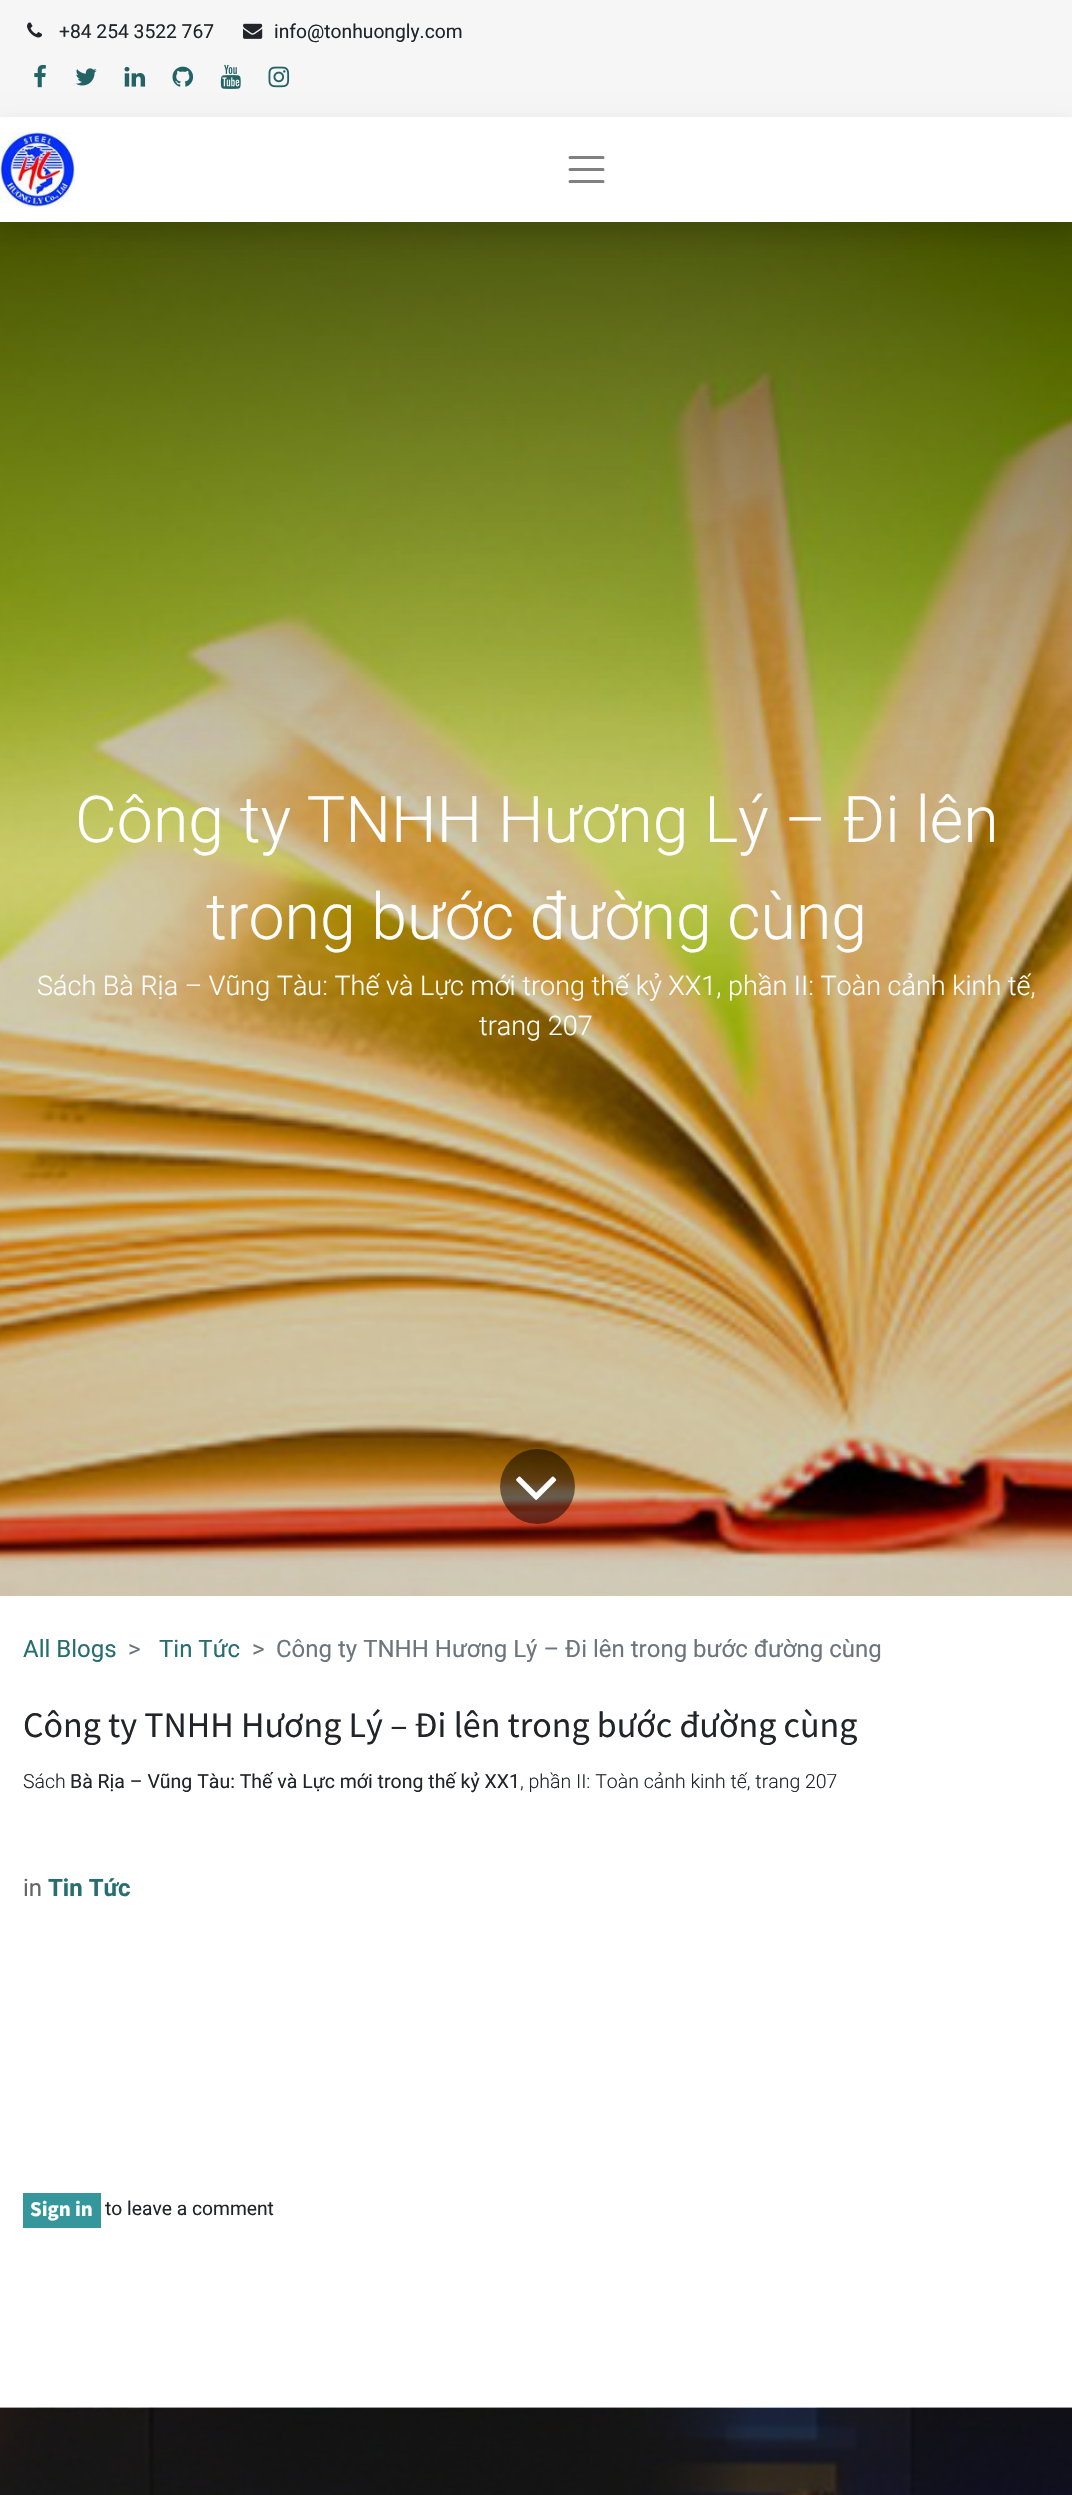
void draw(SkCanvas* canvas) {
  SkPaint paint;
  paint.setAntiAlias(true);
  auto face = [&](const char* family, int weight, float size, bool italic = false) {
    SkFontStyle style(weight, SkFontStyle::kNormal_Width,
      italic ? SkFontStyle::kItalic_Slant : SkFontStyle::kUpright_Slant);
    SkFont result(fontMgr->matchFamilyStyle(family, style), size);
    result.setSubpixel(true);
    return result;
  };
  auto paste = [&](const char* path, float x, float y, float w, float h) {
    auto image = SkImages::DeferredFromEncodedData(SkData::MakeFromFileName(path));
    canvas->drawImageRect(image, SkRect::MakeXYWH(x, y, w, h), SkSamplingOptions());
  };
  auto shape = [&](const char* data, bool evenOdd = false) {
    SkPath result = *SkParsePath::FromSVGString(data);
    if (evenOdd) result.setFillType(SkPathFillType::kEvenOdd);
    return result;
  };
  canvas->clear(0xffffffff);
  paint.setColor(0xfff6f6f6);
  canvas->drawRect(SkRect::MakeXYWH(0, 0, 1072, 117), paint);
  paste("img/1.png", 27, 22, 16, 16);
  paste("img/2.png", 243, 23, 20, 16);
  paste("img/3.png", 34, 64, 12, 24);
  paste("img/4.png", 75, 68, 22, 18);
  paste("img/5.png", 124, 66, 22, 21);
  paste("img/6.png", 172, 66, 22, 21);
  paste("img/7.png", 220, 64, 21, 25);
  paste("img/8.png", 268, 66, 22, 22);
  paste("img/10.png", 0, 222, 1072, 1374);
  canvas->save();
  canvas->clipPath(shape("M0 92H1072V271H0ZM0 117H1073V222H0Z", true), true);
  paint.setColor(0x26000000);
  paint.setMaskFilter(SkMaskFilter::MakeBlur(kNormal_SkBlurStyle, 12));
  canvas->drawRect(SkRect::MakeXYWH(0, 129, 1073, 105), paint);
  paint.setMaskFilter(nullptr);
  canvas->restore();
  paste("img/9.png", 0, 132, 75, 75);
  paint.setStroke(true);
  paint.setStrokeWidth(3);
  paint.setStrokeCap(SkPaint::kRound_Cap);
  paint.setColor(0xff808080);
  canvas->drawPath(shape("M570 157.5H603M570 169.5H603M570 181.5H603"), paint);
  paint.setStroke(false);
  paint.setColor(0x80000000);
  canvas->drawCircle(537.5f, 1486.5f, 37.5f, paint);
  paste("img/11.png", 516, 1476, 41, 24);
  paint.setColor(0xff35979c);
  canvas->drawRect(SkRect::MakeXYWH(23, 2193, 78, 35), paint);
  paste("img/12.png", 0, 2407, 1072, 88);
  auto f0 = face("Roboto", 400, 19.25f);
  paint.setColor(0xff212529);
  canvas->drawString("+84 254 3522 767", 59, 38, f0, paint);
  canvas->drawString("info@tonhuongly.com", 274, 38, f0, paint);
  auto f1 = face("Roboto", 300, 64.4f);
  paint.setColor(0xffffffff);
  canvas->drawString("Công ty TNHH Hương Lý – Đi lên", 75, 842, f1, paint);
  canvas->drawString("trong bước đường cùng", 206, 939, f1, paint);
  auto f2 = face("Roboto", 300, 27);
  canvas->drawString("Sách Bà Rịa – Vũng Tàu: Thế và Lực mới trong thế kỷ XX1, phần II: Toàn cảnh kinh tế,", 37, 995, f2, paint);
  canvas->drawString("trang 207", 479, 1035, f2, paint);
  auto f3 = face("Roboto", 400, 24);
  paint.setColor(0xff276e72);
  canvas->drawString("All Blogs", 23, 1657, f3, paint);
  paint.setColor(0xff6c757d);
  canvas->drawString(">", 128, 1657, f3, paint);
  paint.setColor(0xff276e72);
  canvas->drawString("Tin Tức", 159, 1657, f3, paint);
  paint.setColor(0xff6c757d);
  canvas->drawString(">", 252, 1657, f3, paint);
  canvas->drawString("Công ty TNHH Hương Lý – Đi lên trong bước đường cùng", 276, 1657, f3, paint);
  auto f4 = face("Source Sans Pro", 400, 36);
  paint.setColor(0xff212529);
  canvas->drawString("Công ty TNHH Hương Lý – Đi lên trong bước đường cùng", 23, 1737, f4, paint);
  auto f5 = face("Roboto", 300, 19.5f);
  canvas->drawString("Sách", 23, 1788, f5, paint);
  auto f6 = face("Roboto", 400, 19.5f);
  canvas->drawString("Bà Rịa – Vũng Tàu: Thế và Lực mới trong thế kỷ XX1", 70, 1788, f6, paint);
  canvas->drawString(", phần II: Toàn cảnh kinh tế, trang 207", 520, 1788, f5, paint);
  paint.setColor(0xff646669);
  canvas->drawString("in", 23, 1896, f3, paint);
  auto f7 = face("Roboto", 700, 24);
  paint.setColor(0xff276e72);
  canvas->drawString("Tin Tức", 48, 1896, f7, paint);
  auto f8 = face("Source Sans Pro", 700, 21);
  paint.setColor(0xffffffff);
  canvas->drawString("Sign in", 30, 2216, f8, paint);
  paint.setColor(0xff212529);
  canvas->drawString("to leave a comment", 105, 2215, f0, paint);
}
